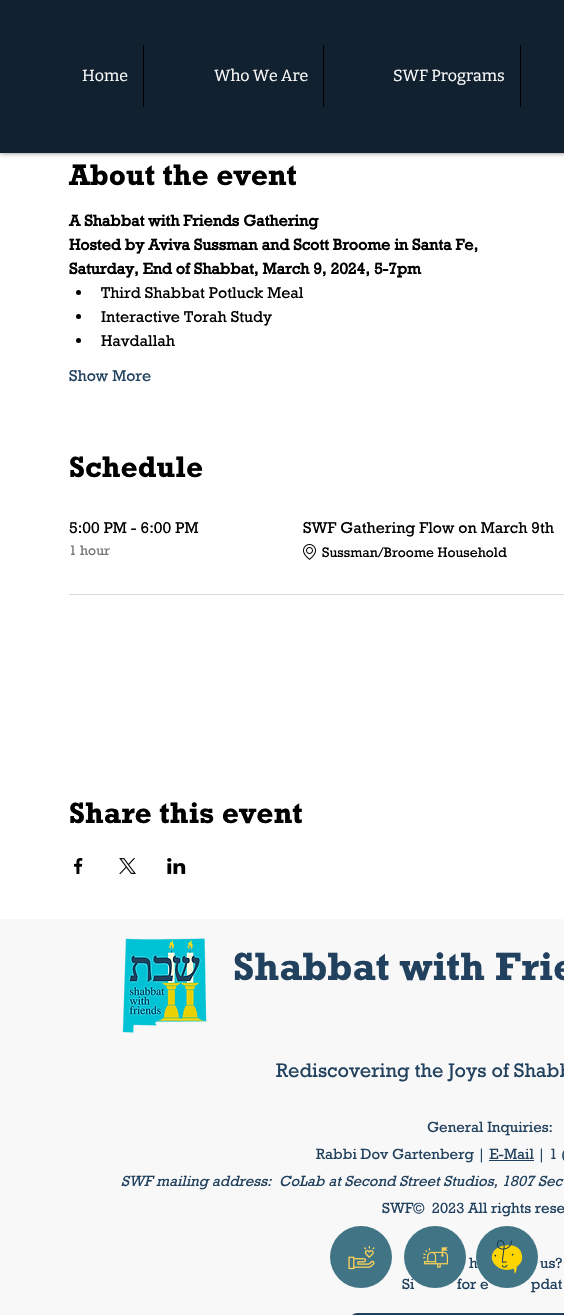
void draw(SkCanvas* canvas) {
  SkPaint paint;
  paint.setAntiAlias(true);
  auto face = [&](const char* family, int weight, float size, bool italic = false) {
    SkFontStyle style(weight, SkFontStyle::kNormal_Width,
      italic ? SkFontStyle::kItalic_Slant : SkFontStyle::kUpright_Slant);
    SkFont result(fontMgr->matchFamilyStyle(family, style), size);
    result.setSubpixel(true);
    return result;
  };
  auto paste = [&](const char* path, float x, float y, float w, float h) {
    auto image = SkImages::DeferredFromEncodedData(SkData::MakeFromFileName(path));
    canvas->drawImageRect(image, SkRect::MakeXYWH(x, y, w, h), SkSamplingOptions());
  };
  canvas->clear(0xfff8f8f8);
  paint.setColor(0xffffffff);
  canvas->drawRect(SkRect::MakeXYWH(0, 153, 564, 766), paint);
  paint.setColor(0x80000000);
  paint.setMaskFilter(SkMaskFilter::MakeBlur(kNormal_SkBlurStyle, 2.5f));
  canvas->drawRect(SkRect::MakeXYWH(0, 0, 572, 153), paint);
  paint.setMaskFilter(nullptr);
  {
    const struct { float x, y, w, h; SkColor color; } items[] = {
      {0, 0, 564, 153, 0xff11212f},
      {143, 45, 1, 62, 0xff000000},
      {323, 45, 1, 62, 0xff000000},
      {520, 45, 1, 62, 0xff000000},
    };
    for (auto [x, y, w, h, color] : items) {
      paint.setColor(color);
      canvas->drawRect(SkRect::MakeXYWH(x, y, w, h), paint);
    }
  }
  canvas->drawCircle(78.5f, 292.5f, 2.5f, paint);
  canvas->drawCircle(78.5f, 316.5f, 2.5f, paint);
  canvas->drawCircle(78.5f, 340.5f, 2.5f, paint);
  paste("img/1.png", 303, 544, 13, 16);
  paint.setColor(0xffd9d9d9);
  canvas->drawRect(SkRect::MakeXYWH(69, 594, 495, 1), paint);
  paste("img/2.png", 74, 858, 9, 16);
  paste("img/3.png", 119, 858, 17, 16);
  paste("img/4.png", 167, 858, 19, 16);
  paste("img/5.png", 122, 938, 85, 95);
  paint.setColor(0xff21415e);
  canvas->drawRect(SkRect::MakeXYWH(489, 1160, 45, 1), paint);
  canvas->drawRoundRect(SkRect::MakeXYWH(349, 1313, 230, 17), 15, 15, paint);
  paint.setColor(0xff417586);
  canvas->drawCircle(361, 1257, 31, paint);
  paste("img/6.png", 348, 1246, 27, 24);
  auto f0 = face("Bitter", 400, 16);
  paint.setColor(0xffffffff);
  {
    const struct { const char* s; float x, y; } items[] = {
      {"Home", 82, 81},
      {"Who We Are", 214, 81},
      {"SWF Programs", 393, 81},
    };
    for (auto [s, x, y] : items) {
      canvas->drawString(s, x, y, f0, paint);
    }
  }
  auto f1 = face("Rockwell", 700, 30);
  paint.setColor(0xff000000);
  canvas->drawString("About the event", 69, 185, f1, paint);
  auto f2 = face("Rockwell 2", 700, 16);
  {
    const struct { const char* s; float x, y; } items[] = {
      {"A Shabbat with Friends Gathering", 69, 226},
      {"Hosted by Aviva Sussman and Scott Broome in Santa Fe,", 69, 250},
      {"Saturday, End of Shabbat, March 9, 2024, 5-7pm", 69, 274},
    };
    for (auto [s, x, y] : items) {
      canvas->drawString(s, x, y, f2, paint);
    }
  }
  auto f3 = face("Rockwell", 400, 16);
  {
    const struct { const char* s; float x, y; } items[] = {
      {"Third Shabbat Potluck Meal", 101, 298},
      {"Interactive Torah Study", 101, 322},
      {"Havdallah", 101, 346},
    };
    for (auto [s, x, y] : items) {
      canvas->drawString(s, x, y, f3, paint);
    }
  }
  paint.setColor(0xff21415e);
  canvas->drawString("Show More", 69, 381, f3, paint);
  paint.setColor(0xff000000);
  canvas->drawString("Schedule", 69, 477, f1, paint);
  canvas->drawString("5:00 PM - 6:00 PM", 69, 533, f3, paint);
  auto f4 = face("Rockwell", 400, 14);
  paint.setColor(0xff767676);
  canvas->drawString("1 hour", 69, 555, f4, paint);
  paint.setColor(0xff000000);
  canvas->drawString("SWF Gathering Flow on March 9th", 303, 533, f3, paint);
  canvas->drawString("Sussman/Broome Household", 322, 557, f4, paint);
  canvas->drawString("Share this event", 69, 823, f1, paint);
  auto f5 = face("Rockwell", 700, 40);
  paint.setColor(0xff21415e);
  canvas->drawString("Shabbat with Frie", 233, 980, f5, paint);
  auto f6 = face("Rockwell", 400, 20);
  canvas->drawString("Rediscovering the Joys of Shabb", 276, 1077, f6, paint);
  auto f7 = face("Rockwell", 400, 15);
  canvas->drawString("General Inquiries:", 427, 1132, f7, paint);
  canvas->drawString("Rabbi Dov Gartenberg | E-Mail | 1 (", 316, 1159, f7, paint);
  auto f8 = face("Rockwell", 400, 15, true);
  canvas->drawString("SWF mailing address:", 121, 1186, f8, paint);
  canvas->drawString("CoLab at Second Street Studios, 1807 Sec", 279, 1186, f8, paint);
  {
    const struct { const char* s; float x, y; } items[] = {
      {"SWF©  2023 All rights rese", 382, 1213},
      {"h", 469, 1268},
      {"us?", 540, 1268},
      {"Si", 402, 1289},
      {"for e", 457, 1289},
      {"pdat", 531, 1289},
    };
    for (auto [s, x, y] : items) {
      canvas->drawString(s, x, y, f7, paint);
    }
  }
  paint.setColor(0xff417586);
  canvas->drawCircle(435, 1257, 31, paint);
  paste("img/7.png", 423, 1247, 25, 21);
  canvas->drawCircle(507, 1257, 31, paint);
  paste("img/8.png", 491, 1240, 32, 34);
}
